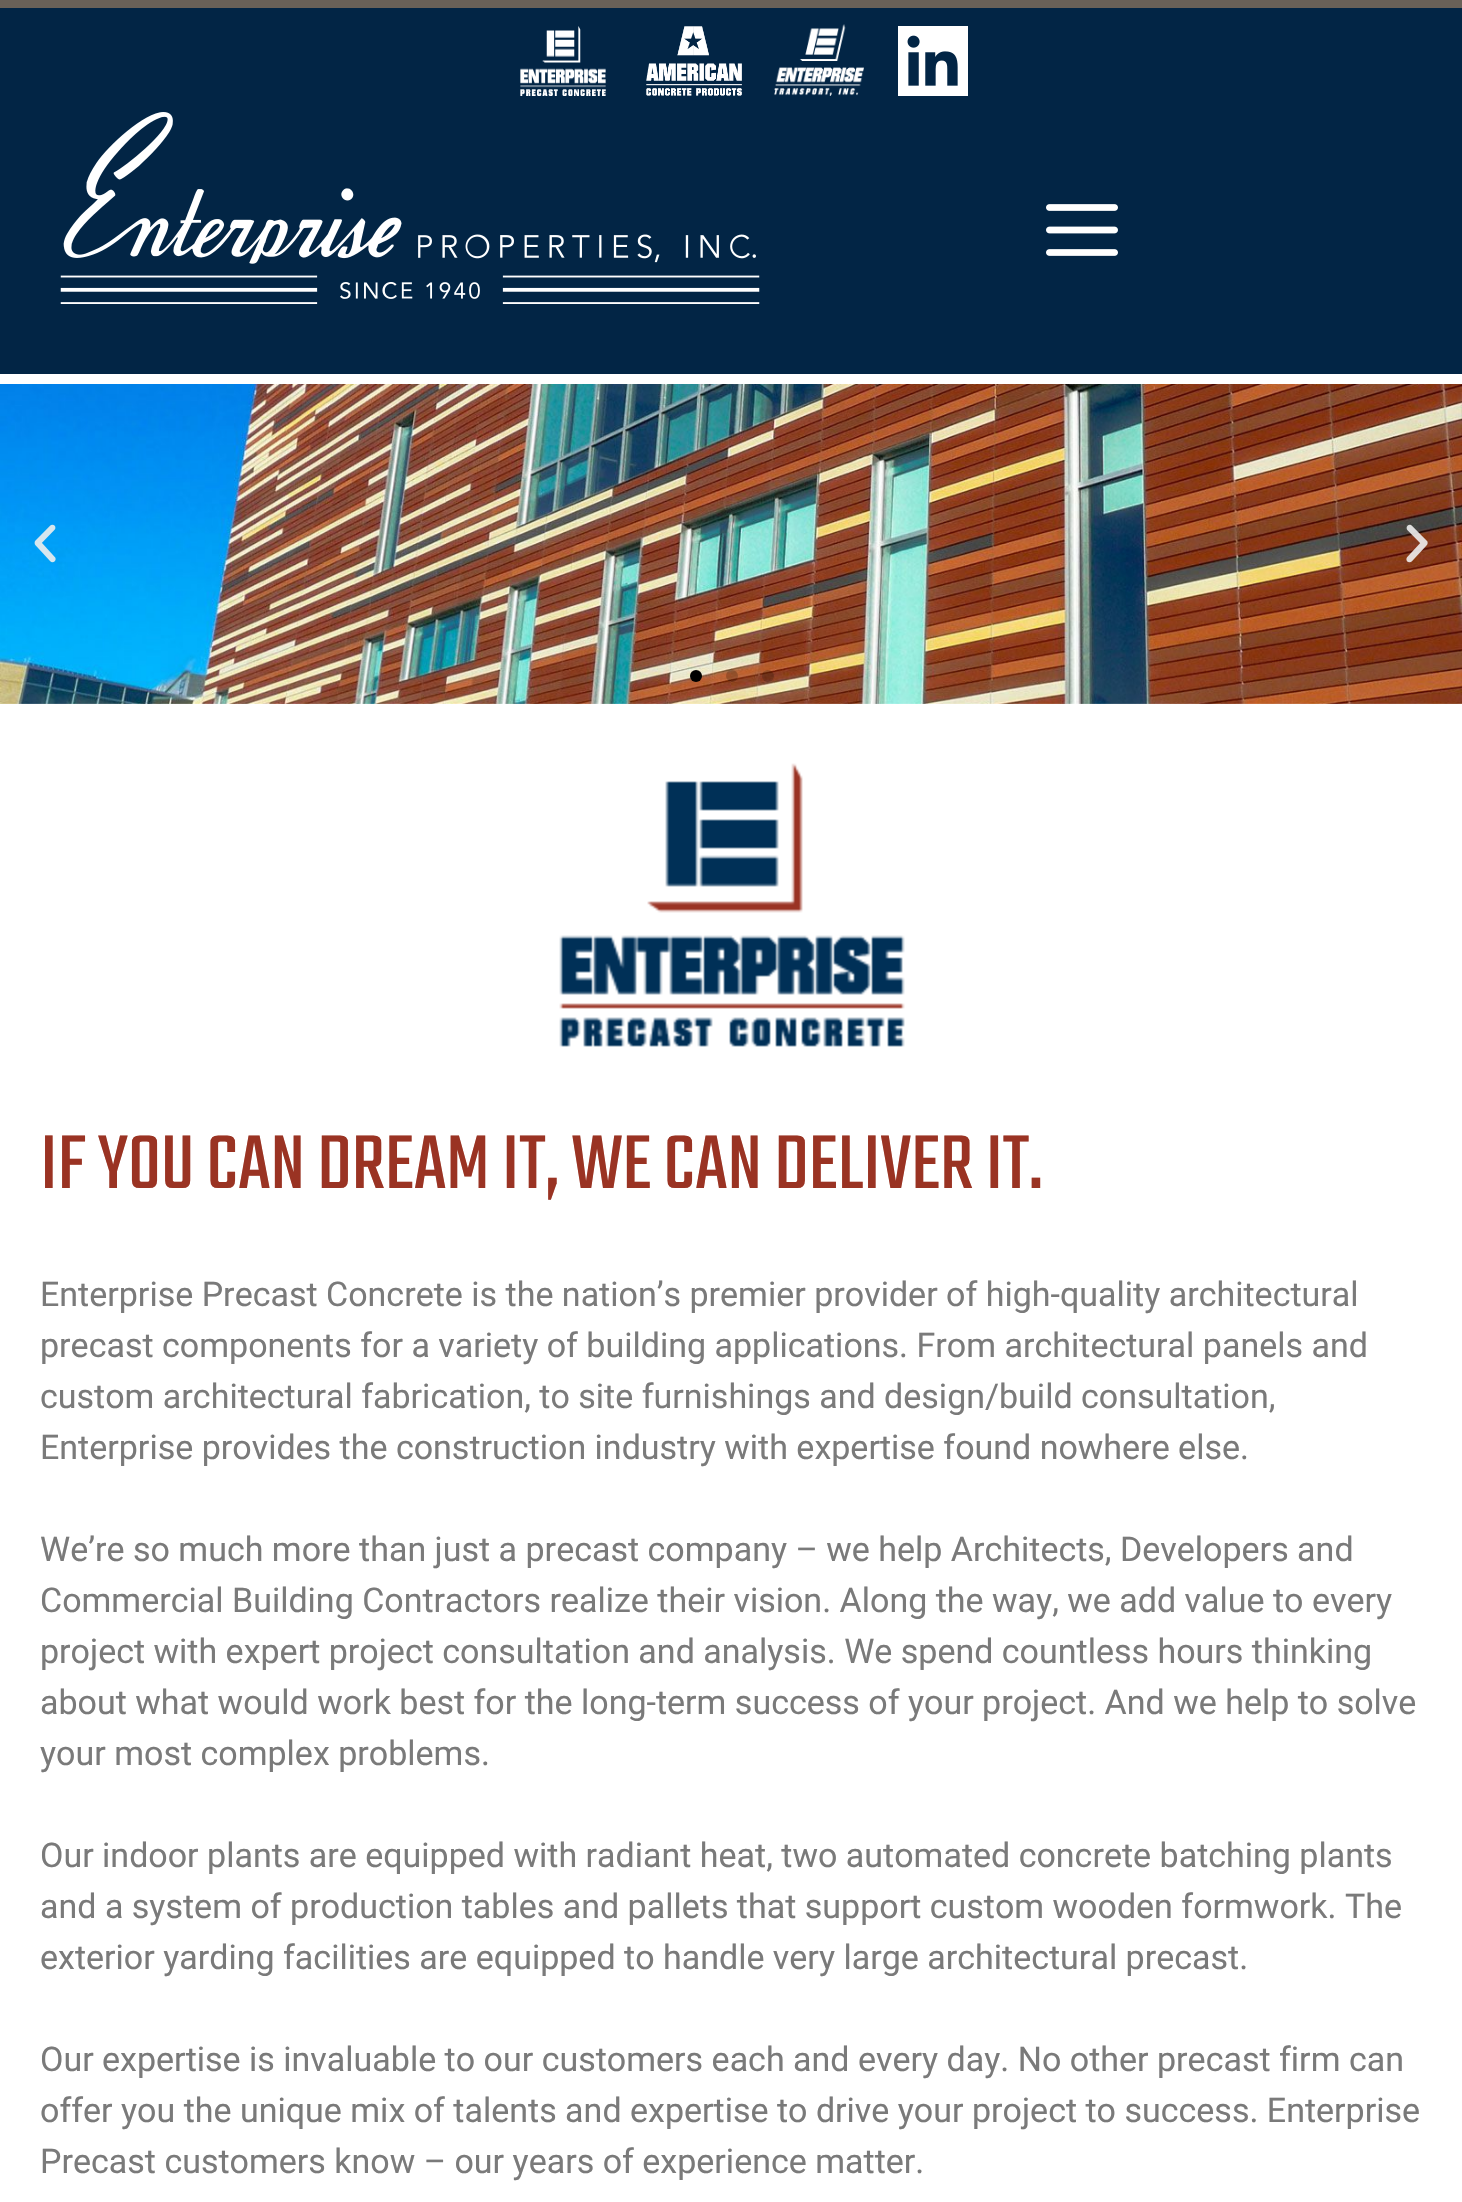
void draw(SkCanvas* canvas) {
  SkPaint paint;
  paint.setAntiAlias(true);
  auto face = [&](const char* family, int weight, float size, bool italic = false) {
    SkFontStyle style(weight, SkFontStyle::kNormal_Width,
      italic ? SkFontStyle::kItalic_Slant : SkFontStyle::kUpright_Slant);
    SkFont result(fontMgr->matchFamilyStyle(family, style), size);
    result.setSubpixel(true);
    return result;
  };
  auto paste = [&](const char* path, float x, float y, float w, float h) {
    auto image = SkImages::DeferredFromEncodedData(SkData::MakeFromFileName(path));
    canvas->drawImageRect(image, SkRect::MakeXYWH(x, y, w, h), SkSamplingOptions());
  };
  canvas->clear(0xff022545);
  paint.setColor(0xff696158);
  canvas->drawRect(SkRect::MakeXYWH(0, 0, 1462, 8), paint);
  paste("img/1.png", 520, 26, 86, 70);
  paste("img/2.png", 646, 26, 96, 70);
  paste("img/3.png", 774, 24, 90, 72);
  paste("img/4.png", 898, 26, 70, 70);
  paste("img/5.png", 60, 112, 700, 192);
  paste("img/6.png", 1046, 204, 72, 52);
  paint.setColor(0xffffffff);
  canvas->drawRect(SkRect::MakeXYWH(0, 374, 1462, 1828), paint);
  paste("img/7.png", 0, 384, 1462, 320);
  paste("img/8.png", 34, 524, 22, 39);
  paste("img/9.png", 1406, 524, 22, 39);
  paint.setColor(0xff000000);
  canvas->drawCircle(696, 676, 6, paint);
  paint.setColor(0x33000000);
  canvas->drawCircle(732, 676, 6, paint);
  canvas->drawCircle(768, 676, 6, paint);
  paste("img/10.png", 559, 763, 346, 284);
  auto f0 = face("Teko", 400, 84);
  paint.setColor(0xff9a3323);
  canvas->drawString("IF YOU CAN DREAM IT, WE CAN DELIVER IT.", 40, 1188, f0, paint);
  auto f1 = face("Roboto", 400, 34);
  paint.setColor(0xff7a7a7a);
  {
    const struct { const char* s; float x, y; } items[] = {
      {"Enterprise Precast Concrete is the nation’s premier provider of high-quality architectural", 40, 1306},
      {"precast components for a variety of building applications. From architectural panels and", 40, 1357},
      {"custom architectural fabrication, to site furnishings and design/build consultation,", 40, 1408},
      {"Enterprise provides the construction industry with expertise found nowhere else.", 40, 1459},
      {"We’re so much more than just a precast company – we help Architects, Developers and", 40, 1561},
      {"Commercial Building Contractors realize their vision. Along the way, we add value to every", 40, 1612},
      {"project with expert project consultation and analysis. We spend countless hours thinking", 40, 1663},
      {"about what would work best for the long-term success of your project. And we help to solve", 40, 1714},
      {"your most complex problems.", 40, 1765},
      {"Our indoor plants are equipped with radiant heat, two automated concrete batching plants", 40, 1867},
      {"and a system of production tables and pallets that support custom wooden formwork. The", 40, 1918},
      {"exterior yarding facilities are equipped to handle very large architectural precast.", 40, 1969},
      {"Our expertise is invaluable to our customers each and every day. No other precast firm can", 40, 2071},
      {"offer you the unique mix of talents and expertise to drive your project to success. Enterprise", 40, 2122},
      {"Precast customers know – our years of experience matter.", 40, 2173},
    };
    for (auto [s, x, y] : items) {
      canvas->drawString(s, x, y, f1, paint);
    }
  }
}
